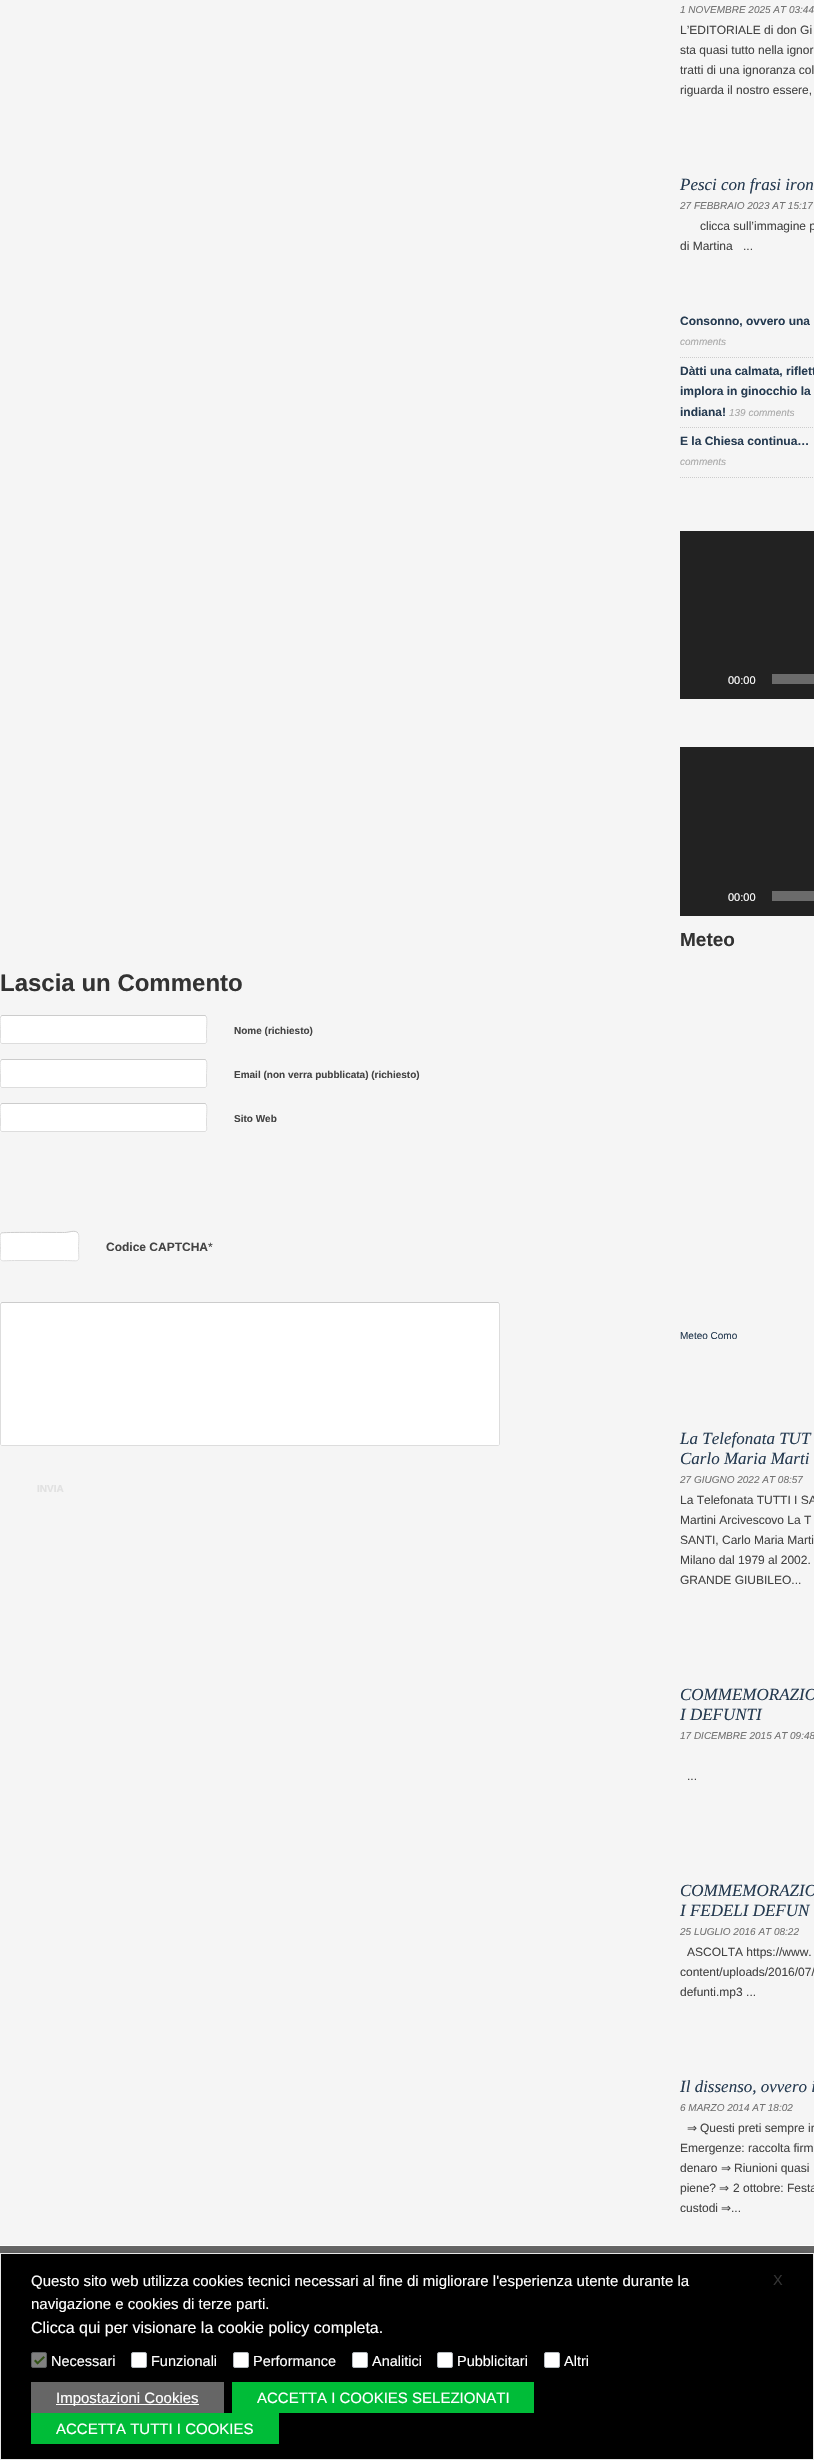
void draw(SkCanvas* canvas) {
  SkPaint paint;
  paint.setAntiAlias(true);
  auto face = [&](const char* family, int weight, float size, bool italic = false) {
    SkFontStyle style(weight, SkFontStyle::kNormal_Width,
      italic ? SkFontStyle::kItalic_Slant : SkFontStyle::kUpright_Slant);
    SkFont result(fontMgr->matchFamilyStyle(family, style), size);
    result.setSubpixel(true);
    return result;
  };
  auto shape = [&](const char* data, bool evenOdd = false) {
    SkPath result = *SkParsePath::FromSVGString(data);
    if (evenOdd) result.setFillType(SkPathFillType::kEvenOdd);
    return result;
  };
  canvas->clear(0xfff5f5f5);
  paint.setColor(0xffffffff);
  canvas->drawRoundRect(SkRect::MakeXYWH(0, 1015, 207, 29), 2, 2, paint);
  paint.setStroke(true);
  paint.setStrokeWidth(1);
  paint.setColor(0xffcccccc);
  canvas->drawPath(shape("M1 1016L2 1015.5H205L206 1016"), paint);
  paint.setColor(0xffdddddd);
  canvas->drawPath(shape("M206 1016C207.5 1017.5 206.5 1027.5 206.5 1029.5V1038C206.5 1038.5 207.5 1043.5 205 1043.5H2C-.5 1043.5 .5 1038.5 .5 1038V1029.5C.5 1027.5-.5 1017.5 1 1016"), paint);
  paint.setStroke(false);
  paint.setColor(0xffffffff);
  canvas->drawRoundRect(SkRect::MakeXYWH(0, 1059, 207, 29), 2, 2, paint);
  paint.setStroke(true);
  paint.setColor(0xffcccccc);
  canvas->drawPath(shape("M1 1060L2 1059.5H205L206 1060"), paint);
  paint.setColor(0xffdddddd);
  canvas->drawPath(shape("M206 1060C207.5 1061.5 206.5 1071.5 206.5 1073.5V1082C206.5 1082.5 207.5 1087.5 205 1087.5H2C-.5 1087.5 .5 1082.5 .5 1082V1073.5C.5 1071.5-.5 1061.5 1 1060"), paint);
  paint.setStroke(false);
  paint.setColor(0xffffffff);
  canvas->drawRoundRect(SkRect::MakeXYWH(0, 1103, 207, 29), 2, 2, paint);
  paint.setStroke(true);
  paint.setColor(0xffcccccc);
  canvas->drawPath(shape("M1 1104L2 1103.5H205L206 1104"), paint);
  paint.setColor(0xffdddddd);
  canvas->drawPath(shape("M206 1104C207.5 1105.5 206.5 1115.5 206.5 1117.5V1126C206.5 1126.5 207.5 1131.5 205 1131.5H2C-.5 1131.5 .5 1126.5 .5 1126V1117.5C.5 1115.5-.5 1105.5 1 1104"), paint);
  paint.setStroke(false);
  paint.setColor(0xffffffff);
  canvas->drawRoundRect(SkRect::MakeXYWH(0, 1232, 79, 29), 2, 2, paint);
  paint.setStroke(true);
  paint.setColor(0xffcccccc);
  canvas->drawPath(shape("M1 1233C2 1232 58 1232.5 64.5 1232.5C69 1232.5 75 1229.5 78 1233"), paint);
  paint.setColor(0xffdddddd);
  canvas->drawPath(shape("M78 1233C79.5 1234.5 78.5 1244.5 78.5 1246.5C78.5 1264 82 1260.5 64.5 1260.5H14.5C-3 1260.5 .5 1264 .5 1246.5C.5 1244.5-.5 1234.5 1 1233"), paint);
  paint.setStroke(false);
  paint.setColor(0xffffffff);
  canvas->drawRoundRect(SkRect::MakeXYWH(0, 1302, 500, 144), 2, 2, paint);
  paint.setStroke(true);
  paint.setColor(0xffcccccc);
  canvas->drawPath(shape("M1 1303L2 1302.5H498L499 1303"), paint);
  paint.setColor(0xffdddddd);
  canvas->drawPath(shape("M499 1303L499.5 1304V1444C499.5 1445 499 1445.5 498 1445.5H2C1 1445.5 .5 1445 .5 1444V1304L1 1303"), paint);
  paint.setColor(0xffcccccc);
  paint.setPathEffect(SkDashPathEffect::Make({{1, 1}}, 0));
  canvas->drawPath(shape("M680 357.5H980"), paint);
  paint.setPathEffect(nullptr);
  paint.setPathEffect(SkDashPathEffect::Make({{1, 1}}, 0));
  canvas->drawPath(shape("M680 427.5H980"), paint);
  paint.setPathEffect(nullptr);
  paint.setPathEffect(SkDashPathEffect::Make({{1, 1}}, 0));
  canvas->drawPath(shape("M680 477.5H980"), paint);
  paint.setPathEffect(nullptr);
  paint.setStroke(false);
  {
    const struct { float x, y, w, h; SkColor color; } items[] = {
      {680, 531, 134, 168, 0xff222222},
      {772, 674, 42, 10, 0xff6b6b6b},
      {680, 747, 134, 169, 0xff222222},
      {772, 891, 42, 10, 0xff6b6b6b},
      {0, 2246, 814, 7, 0xff666666},
      {0, 2245, 814, 1, 0xffffffff},
    };
    for (auto [x, y, w, h, color] : items) {
      paint.setColor(color);
      canvas->drawRect(SkRect::MakeXYWH(x, y, w, h), paint);
    }
  }
  paint.setColor(0x80000000);
  paint.setMaskFilter(SkMaskFilter::MakeBlur(kNormal_SkBlurStyle, 5));
  canvas->drawRect(SkRect::MakeXYWH(0, 2258, 814, 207), paint);
  paint.setMaskFilter(nullptr);
  paint.setColor(0xff000000);
  canvas->drawRect(SkRect::MakeXYWH(0.5f, 2253.5f, 813, 206), paint);
  paint.setStroke(true);
  paint.setColor(0xffe6e6e6);
  canvas->drawRect(SkRect::MakeXYWH(0.5f, 2253.5f, 813, 206), paint);
  paint.setStroke(false);
  paint.setColor(0xff808080);
  canvas->drawRoundRect(SkRect::MakeXYWH(31.5f, 2352.5f, 15, 15), 1.5f, 1.5f, paint);
  paint.setStroke(true);
  paint.setColor(0xff5a5d5f);
  canvas->drawRoundRect(SkRect::MakeXYWH(31.5f, 2352.5f, 15, 15), 1.5f, 1.5f, paint);
  paint.setStroke(false);
  paint.setColor(0xff315115);
  canvas->drawPath(shape("M43.5 2356L45 2357.5L37.5 2364.5L36.5 2363Z"), paint);
  canvas->drawPath(shape("M35.5 2359.5L39 2363L37.5 2364.5L34 2361Z"), paint);
  paint.setColor(0xffffffff);
  canvas->drawRoundRect(SkRect::MakeXYWH(131.5f, 2352.5f, 15, 15), 1.5f, 1.5f, paint);
  paint.setStroke(true);
  paint.setColor(0xffb4b9be);
  canvas->drawRoundRect(SkRect::MakeXYWH(131.5f, 2352.5f, 15, 15), 1.5f, 1.5f, paint);
  paint.setStroke(false);
  paint.setColor(0xffffffff);
  canvas->drawRoundRect(SkRect::MakeXYWH(233.5f, 2352.5f, 15, 15), 1.5f, 1.5f, paint);
  paint.setStroke(true);
  paint.setColor(0xffb4b9be);
  canvas->drawRoundRect(SkRect::MakeXYWH(233.5f, 2352.5f, 15, 15), 1.5f, 1.5f, paint);
  paint.setStroke(false);
  paint.setColor(0xffffffff);
  canvas->drawRoundRect(SkRect::MakeXYWH(352.5f, 2352.5f, 15, 15), 1.5f, 1.5f, paint);
  paint.setStroke(true);
  paint.setColor(0xffb4b9be);
  canvas->drawRoundRect(SkRect::MakeXYWH(352.5f, 2352.5f, 15, 15), 1.5f, 1.5f, paint);
  paint.setStroke(false);
  paint.setColor(0xffffffff);
  canvas->drawRoundRect(SkRect::MakeXYWH(437.5f, 2352.5f, 15, 15), 1.5f, 1.5f, paint);
  paint.setStroke(true);
  paint.setColor(0xffb4b9be);
  canvas->drawRoundRect(SkRect::MakeXYWH(437.5f, 2352.5f, 15, 15), 1.5f, 1.5f, paint);
  paint.setStroke(false);
  paint.setColor(0xffffffff);
  canvas->drawRoundRect(SkRect::MakeXYWH(544.5f, 2352.5f, 15, 15), 1.5f, 1.5f, paint);
  paint.setStroke(true);
  paint.setColor(0xffb4b9be);
  canvas->drawRoundRect(SkRect::MakeXYWH(544.5f, 2352.5f, 15, 15), 1.5f, 1.5f, paint);
  paint.setStroke(false);
  {
    const struct { float x, y, w, h; SkColor color; } items[] = {
      {31, 2382, 193, 31, 0xff666666},
      {56, 2404, 143, 1, 0xffffffff},
      {232, 2382, 302, 31, 0xff00bc38},
      {31, 2413, 248, 31, 0xff00bc38},
    };
    for (auto [x, y, w, h, color] : items) {
      paint.setColor(color);
      canvas->drawRect(SkRect::MakeXYWH(x, y, w, h), paint);
    }
  }
  auto f0 = face("Liberation Sans", 700, 24);
  paint.setColor(0xff333333);
  canvas->drawString("Lascia un Commento", 0, 991, f0, paint);
  auto f1 = face("Liberation Sans", 700, 10);
  paint.setColor(0xff444444);
  {
    const struct { const char* s; float x, y; } items[] = {
      {"Nome (richiesto)", 234, 1034},
      {"Email (non verra pubblicata) (richiesto)", 234, 1078},
      {"Sito Web", 234, 1122},
    };
    for (auto [s, x, y] : items) {
      canvas->drawString(s, x, y, f1, paint);
    }
  }
  auto f2 = face("Liberation Sans", 700, 12);
  canvas->drawString("Codice CAPTCHA", 106, 1251, f2, paint);
  auto f3 = face("Liberation Sans", 400, 12);
  canvas->drawString("*", 208, 1251, f3, paint);
  paint.setColor(0xffe1e1e1);
  canvas->drawString("INVIA", 37, 1492, f1, paint);
  auto f4 = face("Liberation Sans", 400, 10, true);
  paint.setColor(0xff737373);
  canvas->drawString("1 NOVEMBRE 2025 AT 03:44", 680, 13, f4, paint);
  paint.setColor(0xff444444);
  {
    const struct { const char* s; float x, y; } items[] = {
      {"L’EDITORIALE di don Gi", 680, 34},
      {"sta quasi tutto nella ignor", 680, 54},
      {"tratti di una ignoranza col", 680, 74},
      {"riguarda il nostro essere,", 680, 94},
    };
    for (auto [s, x, y] : items) {
      canvas->drawString(s, x, y, f3, paint);
    }
  }
  auto f5 = face("Liberation Serif", 400, 17, true);
  paint.setColor(0xff263b51);
  canvas->drawString("Pesci con frasi iron", 680, 190, f5, paint);
  paint.setColor(0xff737373);
  canvas->drawString("27 FEBBRAIO 2023 AT 15:17", 680, 209, f4, paint);
  paint.setColor(0xff444444);
  {
    const struct { const char* s; float x, y; } items[] = {
      {"clicca sull’immagine p", 700, 230},
      {"di Martina", 680, 250},
      {"...", 743, 250},
    };
    for (auto [s, x, y] : items) {
      canvas->drawString(s, x, y, f3, paint);
    }
  }
  paint.setColor(0xff263b51);
  canvas->drawString("Consonno, ovvero una", 680, 325, f2, paint);
  paint.setColor(0xffa9a9a9);
  canvas->drawString("comments", 680, 345, f4, paint);
  paint.setColor(0xff263b51);
  {
    const struct { const char* s; float x, y; } items[] = {
      {"Dàtti una calmata, riflett", 680, 375},
      {"implora in ginocchio la", 680, 395},
      {"indiana!", 680, 416},
    };
    for (auto [s, x, y] : items) {
      canvas->drawString(s, x, y, f2, paint);
    }
  }
  paint.setColor(0xffa9a9a9);
  canvas->drawString("139 comments", 729, 416, f4, paint);
  paint.setColor(0xff263b51);
  canvas->drawString("E la Chiesa continua…", 680, 445, f2, paint);
  paint.setColor(0xffa9a9a9);
  canvas->drawString("comments", 680, 465, f4, paint);
  auto f6 = face("Liberation Sans", 400, 11);
  paint.setColor(0xffffffff);
  canvas->drawString("00:00", 728, 684, f6, paint);
  canvas->drawString("00:00", 728, 901, f6, paint);
  auto f7 = face("Liberation Sans", 700, 19);
  paint.setColor(0xff333333);
  canvas->drawString("Meteo", 680, 946, f7, paint);
  auto f8 = face("Liberation Sans", 400, 10);
  paint.setColor(0xff263b51);
  canvas->drawString("Meteo Como", 680, 1339, f8, paint);
  canvas->drawString("La Telefonata TUT", 680, 1444, f5, paint);
  canvas->drawString("Carlo Maria Marti", 680, 1464, f5, paint);
  paint.setColor(0xff737373);
  canvas->drawString("27 GIUGNO 2022 AT 08:57", 680, 1483, f4, paint);
  paint.setColor(0xff444444);
  {
    const struct { const char* s; float x, y; } items[] = {
      {"La Telefonata TUTTI I SA", 680, 1504},
      {"Martini Arcivescovo La T", 680, 1524},
      {"SANTI, Carlo Maria Marti", 680, 1544},
      {"Milano dal 1979 al 2002.", 680, 1564},
      {"GRANDE GIUBILEO...", 680, 1584},
    };
    for (auto [s, x, y] : items) {
      canvas->drawString(s, x, y, f3, paint);
    }
  }
  paint.setColor(0xff263b51);
  canvas->drawString("COMMEMORAZIO", 680, 1700, f5, paint);
  canvas->drawString("I DEFUNTI", 680, 1720, f5, paint);
  paint.setColor(0xff737373);
  canvas->drawString("17 DICEMBRE 2015 AT 09:48", 680, 1739, f4, paint);
  paint.setColor(0xff444444);
  canvas->drawString("...", 687, 1780, f3, paint);
  paint.setColor(0xff263b51);
  canvas->drawString("COMMEMORAZIO", 680, 1896, f5, paint);
  canvas->drawString("I FEDELI DEFUN", 680, 1916, f5, paint);
  paint.setColor(0xff737373);
  canvas->drawString("25 LUGLIO 2016 AT 08:22", 680, 1935, f4, paint);
  paint.setColor(0xff444444);
  {
    const struct { const char* s; float x, y; } items[] = {
      {"ASCOLTA https://www.", 687, 1956},
      {"content/uploads/2016/07/", 680, 1976},
      {"defunti.mp3 ...", 680, 1996},
    };
    for (auto [s, x, y] : items) {
      canvas->drawString(s, x, y, f3, paint);
    }
  }
  paint.setColor(0xff263b51);
  canvas->drawString("Il dissenso, ovvero i", 680, 2092, f5, paint);
  paint.setColor(0xff737373);
  canvas->drawString("6 MARZO 2014 AT 18:02", 680, 2111, f4, paint);
  auto f9 = face("DejaVu Sans", 400, 12);
  paint.setColor(0xff444444);
  canvas->drawString("⇒", 687, 2132, f9, paint);
  {
    const struct { const char* s; float x, y; } items[] = {
      {"Questi preti sempre in", 700, 2132},
      {"Emergenze: raccolta firm", 680, 2152},
      {"denaro", 680, 2172},
    };
    for (auto [s, x, y] : items) {
      canvas->drawString(s, x, y, f3, paint);
    }
  }
  canvas->drawString("⇒", 721, 2172, f9, paint);
  canvas->drawString("Riunioni quasi", 734, 2172, f3, paint);
  canvas->drawString("piene?", 680, 2192, f3, paint);
  canvas->drawString("⇒", 719, 2192, f9, paint);
  canvas->drawString("2 ottobre: Festa", 733, 2192, f3, paint);
  canvas->drawString("custodi", 680, 2212, f3, paint);
  canvas->drawString("⇒", 721, 2212, f9, paint);
  canvas->drawString("...", 731, 2212, f3, paint);
  auto f10 = face("Liberation Sans", 400, 15);
  paint.setColor(0xffffffff);
  canvas->drawString("Questo sito web utilizza cookies tecnici necessari al fine di migliorare l'esperienza utente durante la", 31, 2286, f10, paint);
  canvas->drawString("navigazione e cookies di terze parti.", 31, 2309, f10, paint);
  auto f11 = face("Liberation Sans", 400, 16);
  canvas->drawString("Clicca qui per visionare la cookie policy completa.", 31, 2333, f11, paint);
  auto f12 = face("Liberation Sans", 400, 14.5f);
  {
    const struct { const char* s; float x, y; } items[] = {
      {"Necessari", 51, 2366},
      {"Funzionali", 151, 2366},
      {"Performance", 253, 2366},
      {"Analitici", 372, 2366},
      {"Pubblicitari", 457, 2366},
      {"Altri", 564, 2366},
    };
    for (auto [s, x, y] : items) {
      canvas->drawString(s, x, y, f12, paint);
    }
  }
  {
    const struct { const char* s; float x, y; } items[] = {
      {"Impostazioni Cookies", 56, 2403},
      {"ACCETTA I COOKIES SELEZIONATI", 257, 2403},
      {"ACCETTA TUTTI I COOKIES", 56, 2434},
    };
    for (auto [s, x, y] : items) {
      canvas->drawString(s, x, y, f10, paint);
    }
  }
  paint.setColor(0xff333333);
  canvas->drawString("X", 773, 2285, f12, paint);
}
